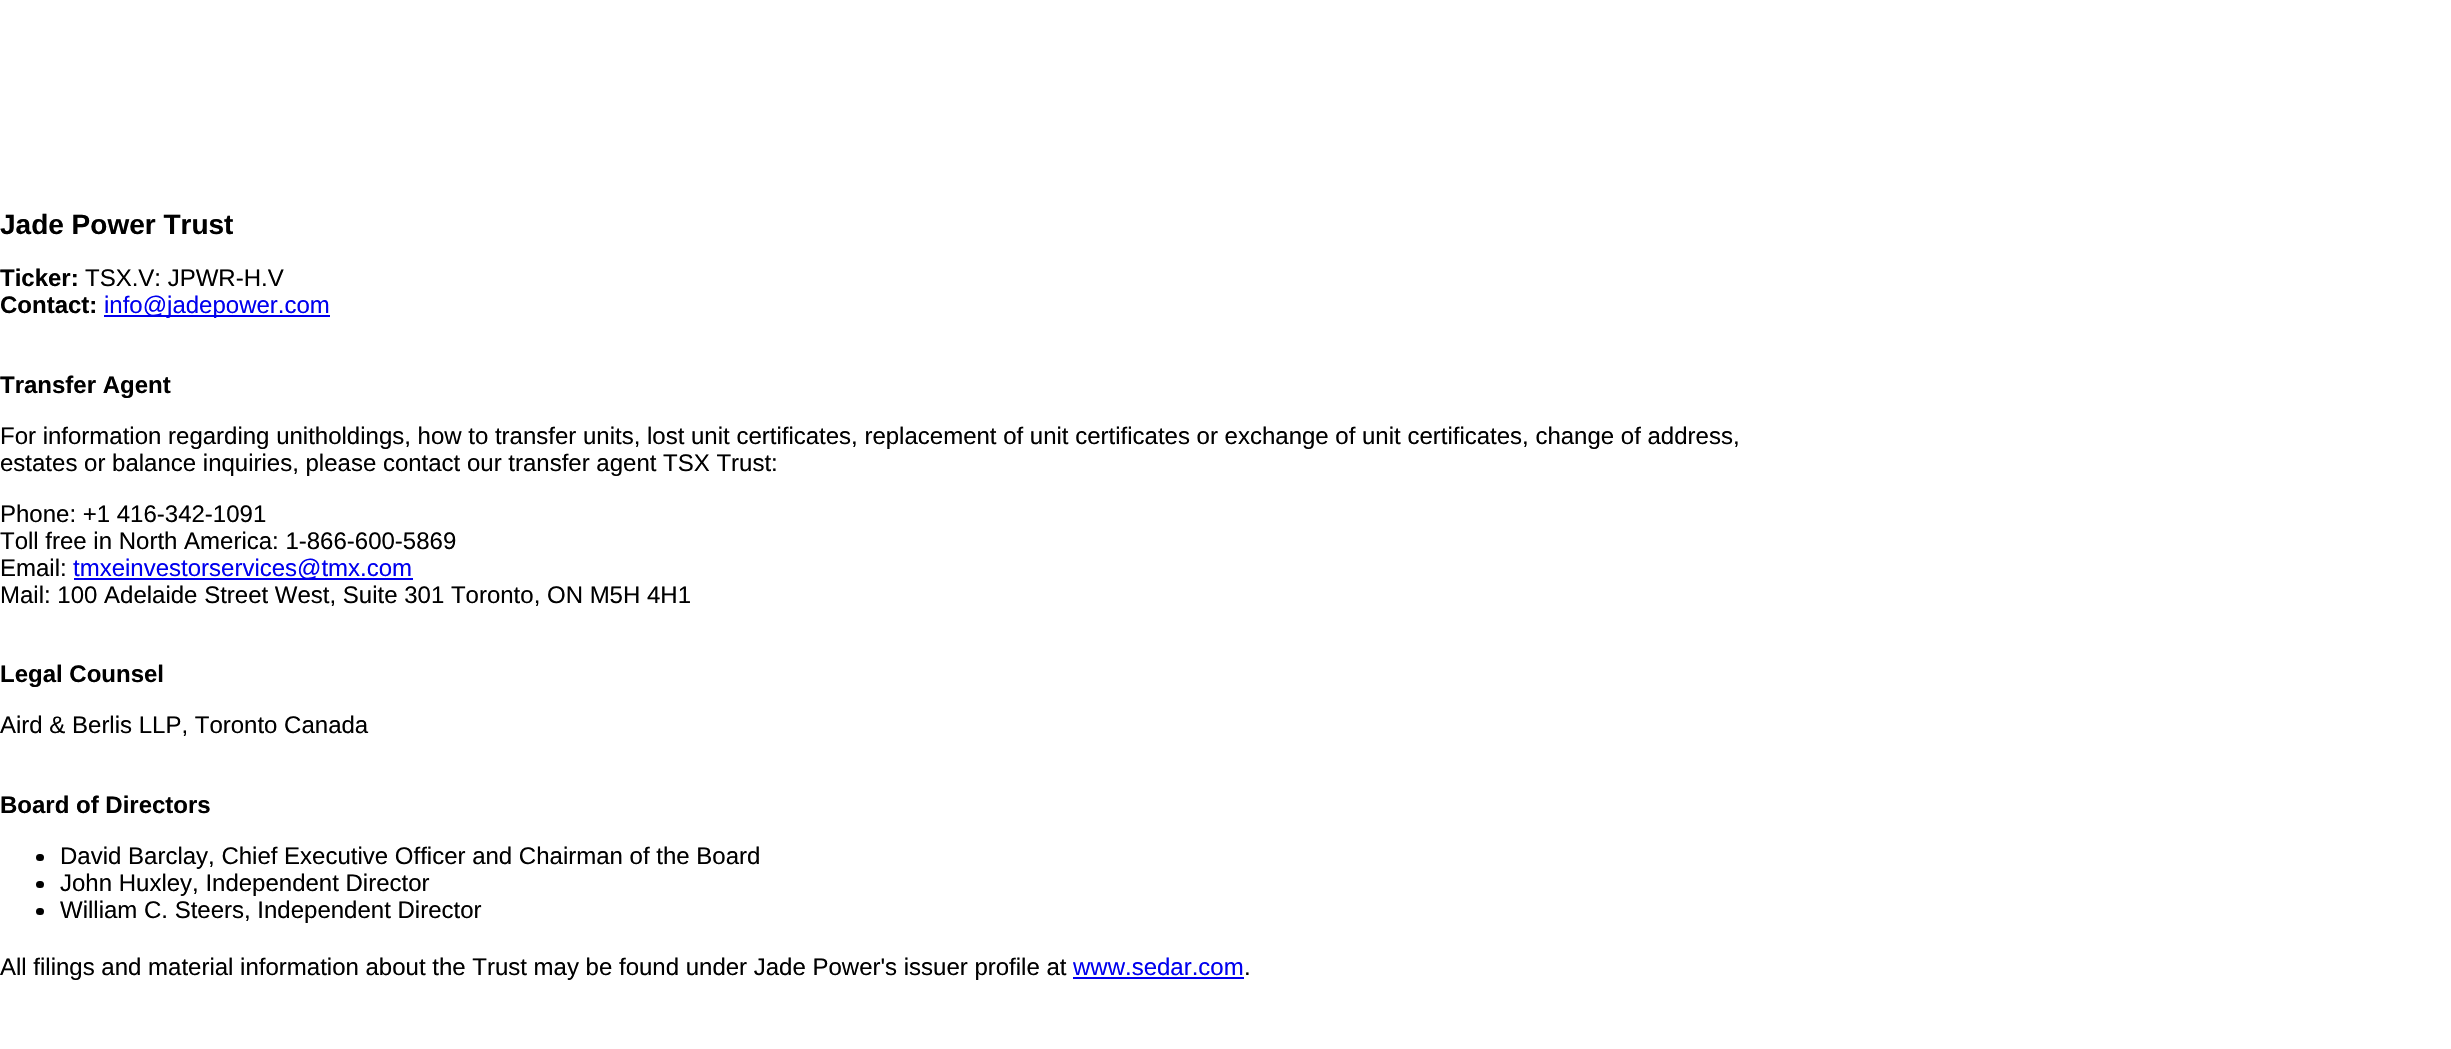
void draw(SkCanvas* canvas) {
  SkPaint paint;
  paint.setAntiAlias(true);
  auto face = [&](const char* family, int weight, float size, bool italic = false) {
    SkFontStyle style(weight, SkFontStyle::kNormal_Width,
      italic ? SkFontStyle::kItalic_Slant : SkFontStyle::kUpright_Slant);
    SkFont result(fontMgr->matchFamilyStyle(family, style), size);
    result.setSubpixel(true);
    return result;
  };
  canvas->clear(0xffffffff);
  paint.setColor(0xff0000ee);
  canvas->drawRect(SkRect::MakeXYWH(104, 315, 226, 2), paint);
  canvas->drawRect(SkRect::MakeXYWH(74, 578, 339, 2), paint);
  paint.setColor(0xff000000);
  canvas->drawRoundRect(SkRect::MakeXYWH(36, 854, 8, 7), 3.5f, 3.5f, paint);
  canvas->drawRoundRect(SkRect::MakeXYWH(36, 881, 8, 7), 3.5f, 3.5f, paint);
  canvas->drawRoundRect(SkRect::MakeXYWH(36, 908, 8, 7), 3.5f, 3.5f, paint);
  paint.setColor(0xff0000ee);
  canvas->drawRect(SkRect::MakeXYWH(1073, 977, 171, 2), paint);
  auto f0 = face("Liberation Sans", 700, 28);
  paint.setColor(0xff000000);
  canvas->drawString("Jade Power Trust", 0, 234, f0, paint);
  auto f1 = face("Liberation Sans", 700, 24);
  canvas->drawString("Ticker:", 0, 286, f1, paint);
  auto f2 = face("Liberation Sans", 400, 24);
  canvas->drawString("TSX.V: JPWR-H.V", 85, 286, f2, paint);
  canvas->drawString("Contact:", 0, 313, f1, paint);
  paint.setColor(0xff0000ee);
  canvas->drawString("info@jadepower.com", 104, 313, f2, paint);
  paint.setColor(0xff000000);
  canvas->drawString("Transfer Agent", 0, 393, f1, paint);
  {
    const struct { const char* s; float x, y; } items[] = {
      {"For information regarding unitholdings, how to transfer units, lost unit certificates, replacement of unit certificates or exchange of unit certificates, change of address,", 0, 444},
      {"estates or balance inquiries, please contact our transfer agent TSX Trust:", 0, 471},
      {"Phone: +1 416-342-1091", 0, 522},
      {"Toll free in North America: 1-866-600-5869", 0, 549},
      {"Email:", 0, 576},
    };
    for (auto [s, x, y] : items) {
      canvas->drawString(s, x, y, f2, paint);
    }
  }
  paint.setColor(0xff0000ee);
  canvas->drawString("tmxeinvestorservices@tmx.com", 73, 576, f2, paint);
  paint.setColor(0xff000000);
  canvas->drawString("Mail: 100 Adelaide Street West, Suite 301 Toronto, ON M5H 4H1", 0, 603, f2, paint);
  canvas->drawString("Legal Counsel", 0, 682, f1, paint);
  canvas->drawString("Aird & Berlis LLP, Toronto Canada", 0, 733, f2, paint);
  canvas->drawString("Board of Directors", 0, 813, f1, paint);
  {
    const struct { const char* s; float x, y; } items[] = {
      {"David Barclay, Chief Executive Officer and Chairman of the Board", 60, 864},
      {"John Huxley, Independent Director", 60, 891},
      {"William C. Steers, Independent Director", 60, 918},
      {"All filings and material information about the Trust may be found under Jade Power's issuer profile at", 0, 975},
    };
    for (auto [s, x, y] : items) {
      canvas->drawString(s, x, y, f2, paint);
    }
  }
  paint.setColor(0xff0000ee);
  canvas->drawString("www.sedar.com", 1073, 975, f2, paint);
  paint.setColor(0xff000000);
  canvas->drawString(".", 1244, 975, f2, paint);
}
